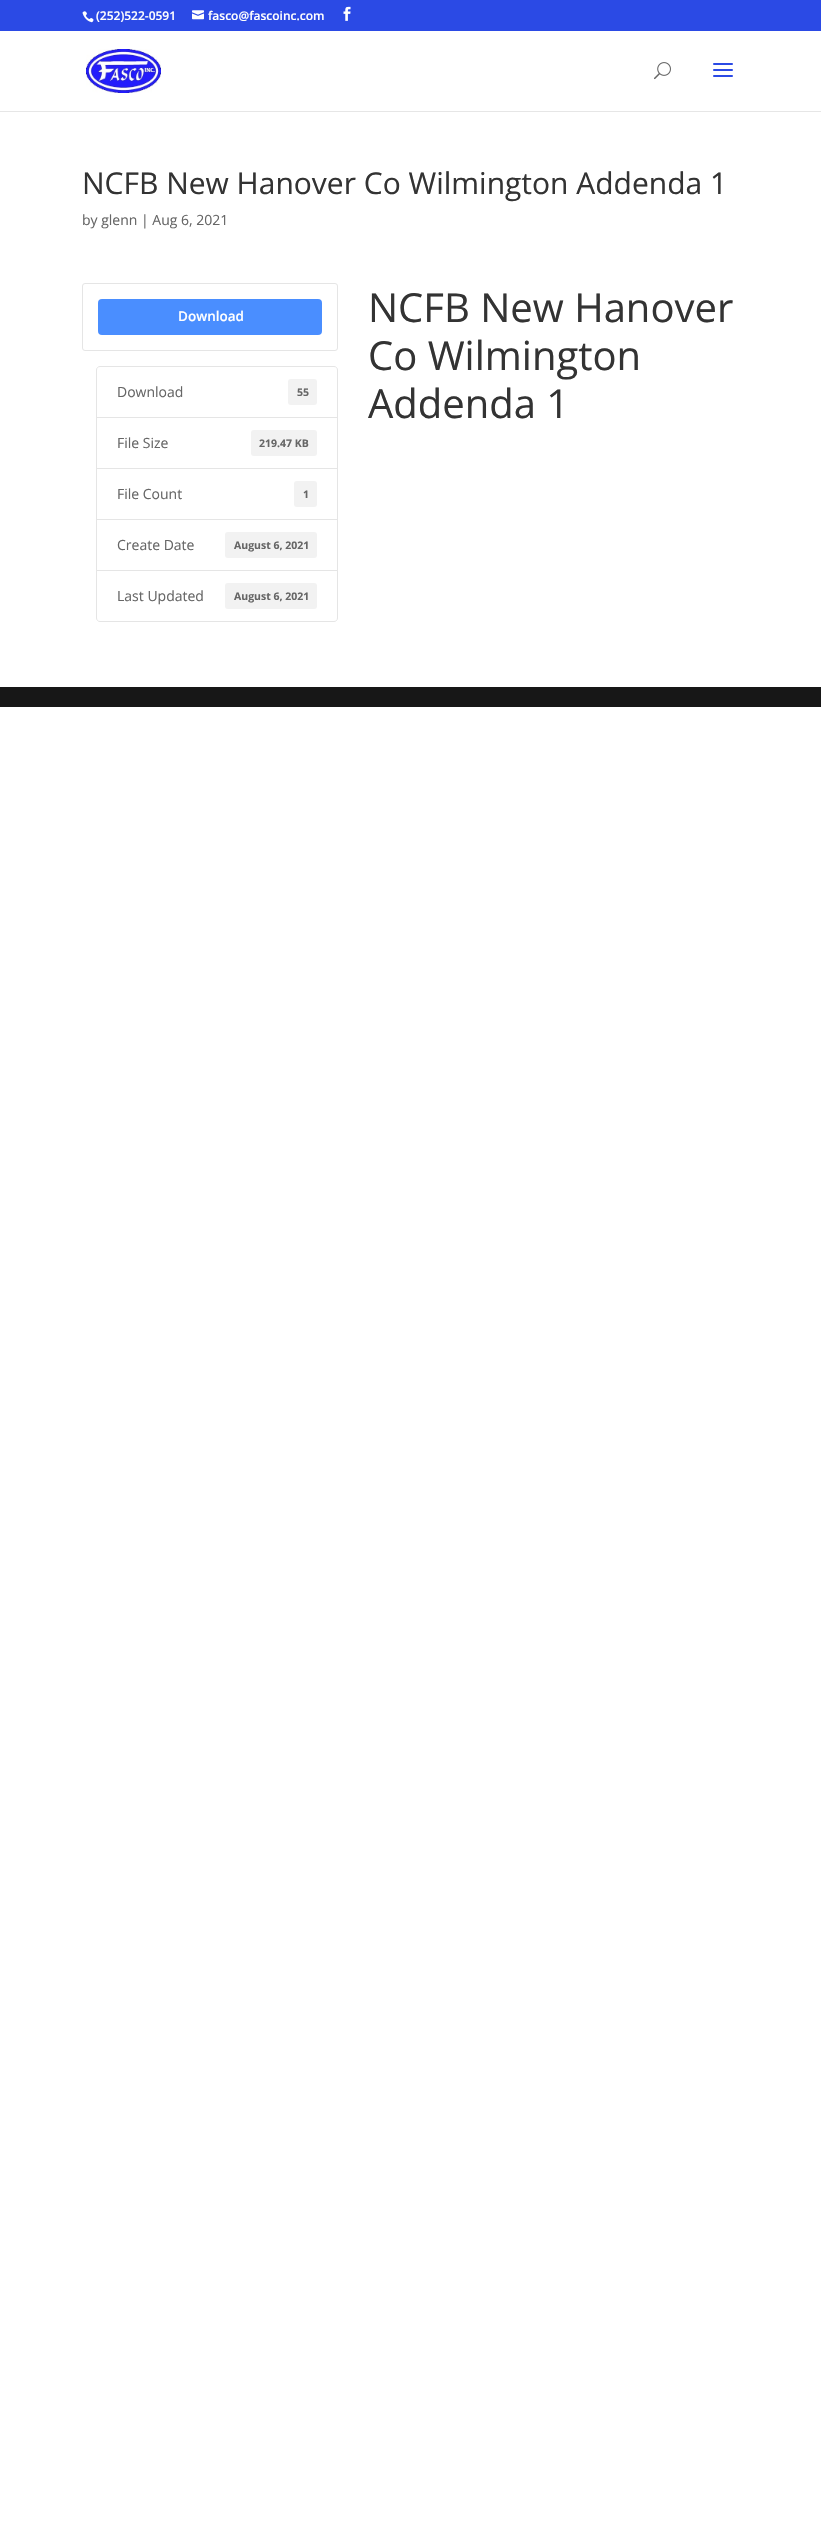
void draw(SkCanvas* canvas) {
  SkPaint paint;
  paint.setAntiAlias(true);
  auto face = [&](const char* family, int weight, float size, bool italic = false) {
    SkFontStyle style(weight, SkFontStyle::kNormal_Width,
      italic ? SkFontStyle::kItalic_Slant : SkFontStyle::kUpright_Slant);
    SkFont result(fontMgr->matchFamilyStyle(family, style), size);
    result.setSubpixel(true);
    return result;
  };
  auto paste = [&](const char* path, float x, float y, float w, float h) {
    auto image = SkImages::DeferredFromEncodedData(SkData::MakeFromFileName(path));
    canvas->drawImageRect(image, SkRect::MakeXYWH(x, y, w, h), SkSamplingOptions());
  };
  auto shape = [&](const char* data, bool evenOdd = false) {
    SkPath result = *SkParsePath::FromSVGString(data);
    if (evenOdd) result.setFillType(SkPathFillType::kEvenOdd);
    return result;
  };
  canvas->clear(0xffffffff);
  paint.setColor(0xff2b4ae5);
  canvas->drawRect(SkRect::MakeXYWH(0, 0, 821, 31), paint);
  paste("img/1.png", 82, 11, 12, 12);
  paste("img/2.png", 192, 10, 12, 10);
  paste("img/3.png", 343, 6, 8, 15);
  paint.setColor(0xffe6e6e6);
  canvas->drawRect(SkRect::MakeXYWH(0, 111, 821, 1), paint);
  paste("img/4.png", 86, 49, 75, 44);
  paste("img/5.png", 654, 62, 17, 18);
  paste("img/6.png", 713, 63, 20, 14);
  paint.setStroke(true);
  paint.setStrokeWidth(1);
  paint.setColor(0xffe5e5e5);
  canvas->drawRoundRect(SkRect::MakeXYWH(82.5f, 283.5f, 255, 67), 2.5f, 2.5f, paint);
  paint.setStroke(false);
  paint.setColor(0xff4a8eff);
  canvas->drawRoundRect(SkRect::MakeXYWH(98, 299, 224, 36), 4, 4, paint);
  paint.setStroke(true);
  paint.setColor(0xffe5e5e5);
  canvas->drawPath(shape("M100 366.5H334C336 366.5 337.5 368 337.5 370V417.5H96.5V370C96.5 368 98 366.5 100 366.5Z"), paint);
  paint.setStroke(false);
  paint.setColor(0xfff2f2f2);
  canvas->drawRoundRect(SkRect::MakeXYWH(288, 379, 29, 26), 3, 3, paint);
  paint.setStroke(true);
  paint.setColor(0xffe5e5e5);
  canvas->drawRect(SkRect::MakeXYWH(96.5f, 417.5f, 241, 51), paint);
  paint.setStroke(false);
  paint.setColor(0xfff2f2f2);
  canvas->drawRoundRect(SkRect::MakeXYWH(251, 430, 66, 26), 3, 3, paint);
  paint.setStroke(true);
  paint.setColor(0xffe5e5e5);
  canvas->drawRect(SkRect::MakeXYWH(96.5f, 468.5f, 241, 51), paint);
  paint.setStroke(false);
  paint.setColor(0xfff2f2f2);
  canvas->drawRoundRect(SkRect::MakeXYWH(294, 481, 23, 26), 3, 3, paint);
  paint.setStroke(true);
  paint.setColor(0xffe5e5e5);
  canvas->drawRect(SkRect::MakeXYWH(96.5f, 519.5f, 241, 51), paint);
  paint.setStroke(false);
  paint.setColor(0xfff2f2f2);
  canvas->drawRoundRect(SkRect::MakeXYWH(225, 532, 92, 26), 3, 3, paint);
  paint.setColor(0xffffffff);
  canvas->drawPath(shape("M96.5 570.5H337.5V618C337.5 620 336 621.5 334 621.5H100C98 621.5 96.5 620 96.5 618Z"), paint);
  paint.setStroke(true);
  paint.setColor(0xffe5e5e5);
  canvas->drawPath(shape("M96.5 570.5H337.5V618C337.5 620 336 621.5 334 621.5H100C98 621.5 96.5 620 96.5 618Z"), paint);
  paint.setStroke(false);
  paint.setColor(0xfff2f2f2);
  canvas->drawRoundRect(SkRect::MakeXYWH(225, 583, 92, 26), 3, 3, paint);
  paint.setColor(0xff171717);
  canvas->drawRect(SkRect::MakeXYWH(0, 687, 821, 20), paint);
  auto f0 = face("Open Sans", 600, 12);
  paint.setColor(0xffffffff);
  canvas->drawString("(252)522-0591", 96, 20, f0, paint);
  canvas->drawString("fasco@fascoinc.com", 208, 20, f0, paint);
  auto f1 = face("Open Sans", 400, 30);
  paint.setColor(0xff333333);
  canvas->drawString("NCFB New Hanover Co Wilmington Addenda 1", 82, 194, f1, paint);
  auto f2 = face("Open Sans", 400, 14);
  paint.setColor(0xff666666);
  canvas->drawString("by glenn | Aug 6, 2021", 82, 225, f2, paint);
  auto f3 = face("Open Sans", 600, 13.5f);
  paint.setColor(0xffffffff);
  canvas->drawString("Download", 178, 321, f3, paint);
  paint.setColor(0xff666666);
  canvas->drawString("Download", 117, 397, f2, paint);
  auto f4 = face("Open Sans", 700, 10.5f);
  canvas->drawString("55", 297, 396, f4, paint);
  canvas->drawString("File Size", 117, 448, f2, paint);
  canvas->drawString("219.47 KB", 259, 447, f4, paint);
  canvas->drawString("File Count", 117, 499, f2, paint);
  canvas->drawString("1", 303, 498, f4, paint);
  canvas->drawString("Create Date", 117, 550, f2, paint);
  canvas->drawString("August 6, 2021", 234, 549, f4, paint);
  canvas->drawString("Last Updated", 117, 601, f2, paint);
  canvas->drawString("August 6, 2021", 234, 600, f4, paint);
  auto f5 = face("Open Sans", 400, 40);
  paint.setColor(0xff333333);
  {
    const struct { const char* s; float x, y; } items[] = {
      {"NCFB New Hanover", 368, 322},
      {"Co Wilmington", 368, 370},
      {"Addenda 1", 368, 418},
    };
    for (auto [s, x, y] : items) {
      canvas->drawString(s, x, y, f5, paint);
    }
  }
}
